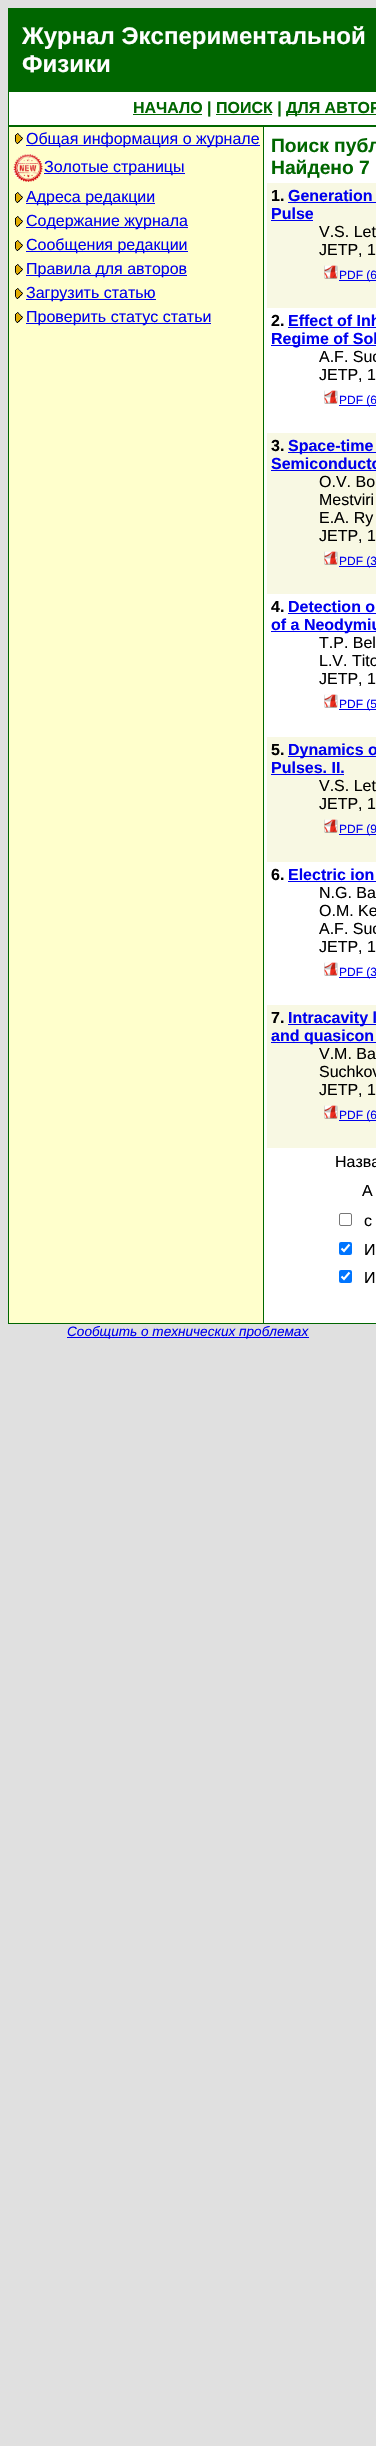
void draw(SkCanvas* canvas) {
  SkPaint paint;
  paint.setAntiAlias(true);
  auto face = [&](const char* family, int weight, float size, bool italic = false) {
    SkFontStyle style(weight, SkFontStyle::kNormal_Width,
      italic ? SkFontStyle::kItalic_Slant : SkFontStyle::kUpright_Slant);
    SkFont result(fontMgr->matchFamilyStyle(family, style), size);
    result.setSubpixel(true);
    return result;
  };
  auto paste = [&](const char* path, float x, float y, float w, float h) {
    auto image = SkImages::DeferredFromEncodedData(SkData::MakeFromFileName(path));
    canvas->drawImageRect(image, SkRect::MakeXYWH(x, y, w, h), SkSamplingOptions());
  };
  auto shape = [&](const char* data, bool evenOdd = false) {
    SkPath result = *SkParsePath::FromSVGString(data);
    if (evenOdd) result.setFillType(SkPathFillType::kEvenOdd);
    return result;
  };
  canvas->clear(0xffe0e0e0);
  {
    const struct { float x, y, w, h; SkColor color; } items[] = {
      {8, 8, 368, 1316, 0xff006600},
      {9, 92, 367, 1231, 0xffffffff},
      {133, 114, 69, 1, 0xff006600},
      {286, 114, 90, 1, 0xff006600},
      {216, 114, 56, 1, 0xff006600},
      {9, 125, 367, 2, 0xff006600},
      {9, 127, 254, 1196, 0xffffffcc},
    };
    for (auto [x, y, w, h, color] : items) {
      paint.setColor(color);
      canvas->drawRect(SkRect::MakeXYWH(x, y, w, h), paint);
    }
  }
  paste("img/1.png", 14, 133, 9, 11);
  paint.setColor(0xff0000ee);
  canvas->drawRect(SkRect::MakeXYWH(26, 145, 234, 1), paint);
  paste("img/2.png", 12, 154, 31, 28);
  canvas->drawRect(SkRect::MakeXYWH(44, 173, 141, 1), paint);
  paste("img/1.png", 14, 192, 9, 11);
  canvas->drawRect(SkRect::MakeXYWH(26, 203, 129, 1), paint);
  paste("img/1.png", 14, 216, 9, 11);
  canvas->drawRect(SkRect::MakeXYWH(26, 227, 162, 1), paint);
  paste("img/1.png", 14, 240, 9, 11);
  canvas->drawRect(SkRect::MakeXYWH(26, 251, 162, 1), paint);
  paste("img/1.png", 14, 264, 9, 11);
  canvas->drawRect(SkRect::MakeXYWH(26, 275, 161, 1), paint);
  paste("img/1.png", 14, 288, 9, 11);
  canvas->drawRect(SkRect::MakeXYWH(26, 299, 130, 1), paint);
  paste("img/1.png", 14, 312, 9, 11);
  {
    const struct { float x, y, w, h; SkColor color; } items[] = {
      {26, 323, 185, 1, 0xff0000ee},
      {263, 127, 1, 1196, 0xff006600},
      {267, 183, 109, 125, 0xfff8f8e3},
      {288, 202, 88, 1, 0xff0000ee},
      {271, 220, 42, 1, 0xff0000ee},
    };
    for (auto [x, y, w, h, color] : items) {
      paint.setColor(color);
      canvas->drawRect(SkRect::MakeXYWH(x, y, w, h), paint);
    }
  }
  paste("img/3.png", 324, 265, 14, 14);
  {
    const struct { float x, y, w, h; SkColor color; } items[] = {
      {339, 280, 37, 1, 0xff0000ee},
      {288, 327, 88, 1, 0xff0000ee},
      {271, 345, 105, 1, 0xff0000ee},
    };
    for (auto [x, y, w, h, color] : items) {
      paint.setColor(color);
      canvas->drawRect(SkRect::MakeXYWH(x, y, w, h), paint);
    }
  }
  paste("img/4.png", 324, 390, 14, 14);
  {
    const struct { float x, y, w, h; SkColor color; } items[] = {
      {339, 405, 37, 1, 0xff0000ee},
      {267, 433, 109, 161, 0xfff8f8e3},
      {288, 452, 88, 1, 0xff0000ee},
      {271, 470, 105, 1, 0xff0000ee},
    };
    for (auto [x, y, w, h, color] : items) {
      paint.setColor(color);
      canvas->drawRect(SkRect::MakeXYWH(x, y, w, h), paint);
    }
  }
  paste("img/3.png", 324, 551, 14, 14);
  {
    const struct { float x, y, w, h; SkColor color; } items[] = {
      {339, 566, 37, 1, 0xff0000ee},
      {288, 613, 88, 1, 0xff0000ee},
      {271, 631, 105, 1, 0xff0000ee},
    };
    for (auto [x, y, w, h, color] : items) {
      paint.setColor(color);
      canvas->drawRect(SkRect::MakeXYWH(x, y, w, h), paint);
    }
  }
  paste("img/4.png", 324, 694, 14, 14);
  {
    const struct { float x, y, w, h; SkColor color; } items[] = {
      {339, 709, 37, 1, 0xff0000ee},
      {267, 737, 109, 125, 0xfff8f8e3},
      {288, 756, 88, 1, 0xff0000ee},
      {271, 774, 73, 1, 0xff0000ee},
    };
    for (auto [x, y, w, h, color] : items) {
      paint.setColor(color);
      canvas->drawRect(SkRect::MakeXYWH(x, y, w, h), paint);
    }
  }
  paste("img/3.png", 324, 819, 14, 14);
  canvas->drawRect(SkRect::MakeXYWH(339, 834, 37, 1), paint);
  canvas->drawRect(SkRect::MakeXYWH(288, 881, 88, 1), paint);
  paste("img/4.png", 324, 962, 14, 14);
  {
    const struct { float x, y, w, h; SkColor color; } items[] = {
      {339, 977, 37, 1, 0xff0000ee},
      {267, 1005, 109, 143, 0xfff8f8e3},
      {288, 1024, 88, 1, 0xff0000ee},
      {271, 1042, 105, 1, 0xff0000ee},
    };
    for (auto [x, y, w, h, color] : items) {
      paint.setColor(color);
      canvas->drawRect(SkRect::MakeXYWH(x, y, w, h), paint);
    }
  }
  paste("img/3.png", 324, 1105, 14, 14);
  canvas->drawRect(SkRect::MakeXYWH(339, 1120, 37, 1), paint);
  paint.setStroke(true);
  paint.setStrokeWidth(1);
  paint.setColor(0xff767676);
  canvas->drawRoundRect(SkRect::MakeXYWH(339.5f, 1213.5f, 12, 12), 1.5f, 1.5f, paint);
  paint.setStroke(false);
  paint.setColor(0xff0075ff);
  canvas->drawRoundRect(SkRect::MakeXYWH(339, 1242, 13, 13), 2, 2, paint);
  paint.setStroke(true);
  paint.setStrokeWidth(2.1f);
  paint.setColor(0xffffffff);
  canvas->drawPath(shape("M341.5 1248.5L344 1251L349.5 1244.5"), paint);
  paint.setStroke(false);
  paint.setColor(0xff0075ff);
  canvas->drawRoundRect(SkRect::MakeXYWH(339, 1270, 13, 13), 2, 2, paint);
  paint.setStroke(true);
  paint.setColor(0xffffffff);
  canvas->drawPath(shape("M341.5 1276.5L344 1279L349.5 1272.5"), paint);
  paint.setStroke(false);
  paint.setColor(0xff0000ee);
  canvas->drawRect(SkRect::MakeXYWH(67, 1337, 242, 1), paint);
  auto f0 = face("Liberation Sans", 700, 24);
  paint.setColor(0xffffffff);
  canvas->drawString("Журнал Экспериментальной", 22, 44, f0, paint);
  canvas->drawString("Физики", 22, 72, f0, paint);
  auto f1 = face("Liberation Sans", 700, 16);
  paint.setColor(0xff006600);
  canvas->drawString("НАЧАЛО | ПОИСК |", 133, 113, f1, paint);
  canvas->drawString("ДЛЯ АВТОР", 286, 113, f1, paint);
  auto f2 = face("Liberation Sans", 400, 16);
  paint.setColor(0xff0000ee);
  {
    const struct { const char* s; float x, y; } items[] = {
      {"Общая информация о журнале", 26, 144},
      {"Золотые страницы", 44, 172},
      {"Адреса редакции", 26, 202},
      {"Содержание журнала", 26, 226},
      {"Сообщения редакции", 26, 250},
      {"Правила для авторов", 26, 274},
      {"Загрузить статью", 26, 298},
      {"Проверить статус статьи", 26, 322},
    };
    for (auto [s, x, y] : items) {
      canvas->drawString(s, x, y, f2, paint);
    }
  }
  auto f3 = face("Liberation Sans", 700, 19.25f);
  paint.setColor(0xff006600);
  canvas->drawString("Поиск публ", 271, 152, f3, paint);
  canvas->drawString("Найдено 7", 271, 174, f3, paint);
  paint.setColor(0xff000000);
  canvas->drawString("1.", 271, 201, f1, paint);
  paint.setColor(0xff0000ee);
  canvas->drawString("Generation", 288, 201, f1, paint);
  canvas->drawString("Pulse", 271, 219, f1, paint);
  paint.setColor(0xff000000);
  canvas->drawString("V.S. Let", 319, 237, f2, paint);
  canvas->drawString("JETP, 1", 319, 255, f2, paint);
  auto f4 = face("Liberation Sans", 400, 12);
  paint.setColor(0xff0000ee);
  canvas->drawString("PDF (6", 339, 279, f4, paint);
  paint.setColor(0xff000000);
  canvas->drawString("2.", 271, 326, f1, paint);
  paint.setColor(0xff0000ee);
  canvas->drawString("Effect of Inh", 288, 326, f1, paint);
  canvas->drawString("Regime of Sol", 271, 344, f1, paint);
  paint.setColor(0xff000000);
  canvas->drawString("A.F. Suc", 319, 362, f2, paint);
  canvas->drawString("JETP, 1", 319, 380, f2, paint);
  paint.setColor(0xff0000ee);
  canvas->drawString("PDF (6", 339, 404, f4, paint);
  paint.setColor(0xff000000);
  canvas->drawString("3.", 271, 451, f1, paint);
  paint.setColor(0xff0000ee);
  canvas->drawString("Space-time", 288, 451, f1, paint);
  canvas->drawString("Semiconducto", 271, 469, f1, paint);
  paint.setColor(0xff000000);
  {
    const struct { const char* s; float x, y; } items[] = {
      {"O.V. Bo", 319, 487},
      {"Mestviri", 319, 505},
      {"E.A. Ry", 319, 523},
      {"JETP, 1", 319, 541},
    };
    for (auto [s, x, y] : items) {
      canvas->drawString(s, x, y, f2, paint);
    }
  }
  paint.setColor(0xff0000ee);
  canvas->drawString("PDF (3", 339, 565, f4, paint);
  paint.setColor(0xff000000);
  canvas->drawString("4.", 271, 612, f1, paint);
  paint.setColor(0xff0000ee);
  canvas->drawString("Detection o", 288, 612, f1, paint);
  canvas->drawString("of a Neodymiu", 271, 630, f1, paint);
  paint.setColor(0xff000000);
  {
    const struct { const char* s; float x, y; } items[] = {
      {"T.P. Bel", 319, 648},
      {"L.V. Tito", 319, 666},
      {"JETP, 1", 319, 684},
    };
    for (auto [s, x, y] : items) {
      canvas->drawString(s, x, y, f2, paint);
    }
  }
  paint.setColor(0xff0000ee);
  canvas->drawString("PDF (5", 339, 708, f4, paint);
  paint.setColor(0xff000000);
  canvas->drawString("5.", 271, 755, f1, paint);
  paint.setColor(0xff0000ee);
  canvas->drawString("Dynamics o", 288, 755, f1, paint);
  canvas->drawString("Pulses. II.", 271, 773, f1, paint);
  paint.setColor(0xff000000);
  canvas->drawString("V.S. Let", 319, 791, f2, paint);
  canvas->drawString("JETP, 1", 319, 809, f2, paint);
  paint.setColor(0xff0000ee);
  canvas->drawString("PDF (9", 339, 833, f4, paint);
  paint.setColor(0xff000000);
  canvas->drawString("6.", 271, 880, f1, paint);
  paint.setColor(0xff0000ee);
  canvas->drawString("Electric ion", 288, 880, f1, paint);
  paint.setColor(0xff000000);
  {
    const struct { const char* s; float x, y; } items[] = {
      {"N.G. Ba", 319, 898},
      {"O.M. Ke", 319, 916},
      {"A.F. Suc", 319, 934},
      {"JETP, 1", 319, 952},
    };
    for (auto [s, x, y] : items) {
      canvas->drawString(s, x, y, f2, paint);
    }
  }
  paint.setColor(0xff0000ee);
  canvas->drawString("PDF (3", 339, 976, f4, paint);
  paint.setColor(0xff000000);
  canvas->drawString("7.", 271, 1023, f1, paint);
  paint.setColor(0xff0000ee);
  canvas->drawString("Intracavity l", 288, 1023, f1, paint);
  canvas->drawString("and quasicon", 271, 1041, f1, paint);
  paint.setColor(0xff000000);
  {
    const struct { const char* s; float x, y; } items[] = {
      {"V.M. Ba", 319, 1059},
      {"Suchkov", 319, 1077},
      {"JETP, 1", 319, 1095},
    };
    for (auto [s, x, y] : items) {
      canvas->drawString(s, x, y, f2, paint);
    }
  }
  paint.setColor(0xff0000ee);
  canvas->drawString("PDF (6", 339, 1119, f4, paint);
  paint.setColor(0xff000000);
  {
    const struct { const char* s; float x, y; } items[] = {
      {"Назва", 335, 1167},
      {"А", 362, 1196},
      {"с", 364, 1226},
      {"И", 364, 1255},
      {"И", 364, 1283},
    };
    for (auto [s, x, y] : items) {
      canvas->drawString(s, x, y, f2, paint);
    }
  }
  auto f5 = face("Liberation Sans", 400, 13.6f, true);
  paint.setColor(0xff0000ee);
  canvas->drawString("Сообщить о технических проблемах", 67, 1336, f5, paint);
}
